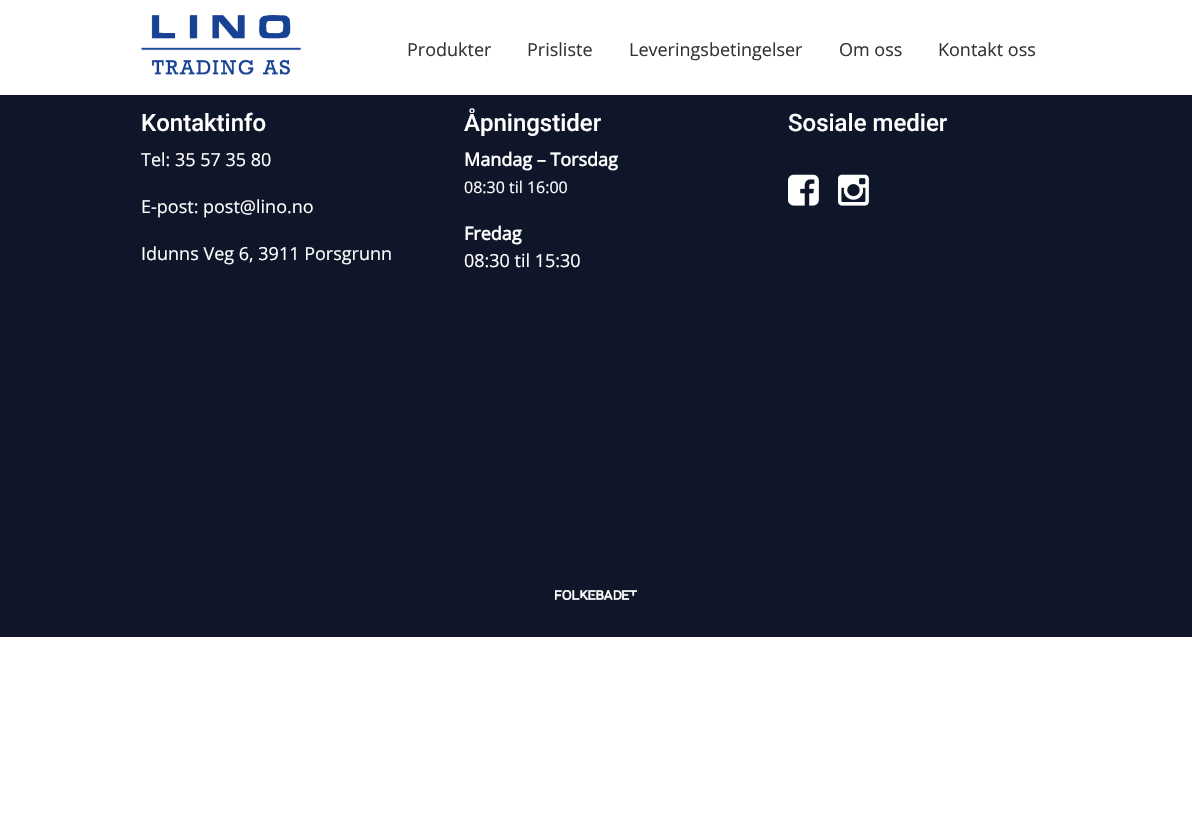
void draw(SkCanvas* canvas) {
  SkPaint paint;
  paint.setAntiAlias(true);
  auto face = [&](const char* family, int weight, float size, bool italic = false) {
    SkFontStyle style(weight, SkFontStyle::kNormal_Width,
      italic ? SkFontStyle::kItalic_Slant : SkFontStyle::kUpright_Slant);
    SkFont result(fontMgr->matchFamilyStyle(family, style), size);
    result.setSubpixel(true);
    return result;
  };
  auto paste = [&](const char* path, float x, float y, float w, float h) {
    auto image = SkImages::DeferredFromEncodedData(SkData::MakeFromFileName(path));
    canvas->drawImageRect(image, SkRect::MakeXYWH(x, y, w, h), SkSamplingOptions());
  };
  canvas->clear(0xffffffff);
  paste("img/1.png", 141, 15, 160, 60);
  paint.setColor(0xff101629);
  canvas->drawRect(SkRect::MakeXYWH(0, 95, 1192, 542), paint);
  paste("img/2.png", 788, 174, 31, 32);
  paste("img/3.png", 838, 174, 31, 32);
  paste("img/4.png", 555, 590, 82, 10);
  auto f0 = face("Open Sans", 400, 18);
  paint.setColor(0xff333333);
  {
    const struct { const char* s; float x, y; } items[] = {
      {"Produkter", 407, 56},
      {"Prisliste", 527, 56},
      {"Leveringsbetingelser", 629, 56},
      {"Om oss", 839, 56},
      {"Kontakt oss", 938, 56},
    };
    for (auto [s, x, y] : items) {
      canvas->drawString(s, x, y, f0, paint);
    }
  }
  auto f1 = face("Roboto", 500, 24);
  paint.setColor(0xffffffff);
  canvas->drawString("Kontaktinfo", 141, 131, f1, paint);
  {
    const struct { const char* s; float x, y; } items[] = {
      {"Tel: 35 57 35 80", 141, 166},
      {"E-post: post@lino.no", 141, 213},
      {"Idunns Veg 6, 3911 Porsgrunn", 141, 260},
    };
    for (auto [s, x, y] : items) {
      canvas->drawString(s, x, y, f0, paint);
    }
  }
  canvas->drawString("Åpningstider", 464, 131, f1, paint);
  auto f2 = face("Open Sans", 700, 18);
  canvas->drawString("Mandag – Torsdag", 464, 166, f2, paint);
  auto f3 = face("Open Sans", 400, 16);
  canvas->drawString("08:30 til 16:00", 464, 193, f3, paint);
  canvas->drawString("Fredag", 464, 240, f2, paint);
  canvas->drawString("08:30 til 15:30", 464, 267, f0, paint);
  canvas->drawString("Sosiale medier", 788, 131, f1, paint);
}
